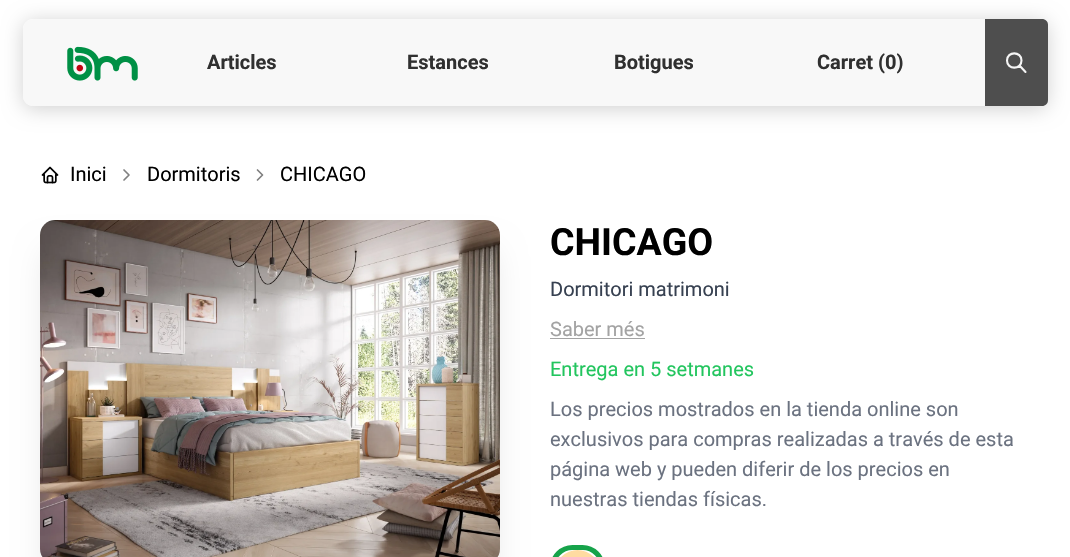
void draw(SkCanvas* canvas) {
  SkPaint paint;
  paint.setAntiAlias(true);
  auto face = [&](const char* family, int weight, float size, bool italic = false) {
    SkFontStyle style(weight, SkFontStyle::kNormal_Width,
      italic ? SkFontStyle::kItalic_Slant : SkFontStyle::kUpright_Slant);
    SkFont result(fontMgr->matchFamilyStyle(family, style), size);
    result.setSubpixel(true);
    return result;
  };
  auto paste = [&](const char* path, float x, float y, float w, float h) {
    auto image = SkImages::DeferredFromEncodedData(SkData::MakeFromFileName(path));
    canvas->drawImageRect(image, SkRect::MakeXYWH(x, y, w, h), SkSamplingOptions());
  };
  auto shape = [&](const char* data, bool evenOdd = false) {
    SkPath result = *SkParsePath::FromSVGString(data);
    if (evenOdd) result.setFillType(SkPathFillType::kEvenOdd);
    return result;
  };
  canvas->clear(0xffffffff);
  canvas->save();
  canvas->clipPath(shape("M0 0H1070V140H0ZM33 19H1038C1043.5 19 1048 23.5 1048 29V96C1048 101.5 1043.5 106 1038 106H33C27.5 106 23 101.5 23 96V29C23 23.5 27.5 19 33 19Z", true), true);
  paint.setColor(0x2e000000);
  paint.setMaskFilter(SkMaskFilter::MakeBlur(kNormal_SkBlurStyle, 10));
  canvas->drawRoundRect(SkRect::MakeXYWH(23, 21, 1025, 88), 10, 10, paint);
  paint.setMaskFilter(nullptr);
  canvas->restore();
  paint.setColor(0xbff5f5f5);
  canvas->drawRoundRect(SkRect::MakeXYWH(23, 19, 1025, 87), 10, 10, paint);
  paste("img/1.png", 67, 46, 71, 35);
  paint.setColor(0xd9303030);
  canvas->drawPath(shape("M985 19H1042C1045.5 19 1048 21.5 1048 25V100C1048 103.5 1045.5 106 1042 106H985Z"), paint);
  paint.setStroke(true);
  paint.setStrokeWidth(2.1f);
  paint.setStrokeCap(SkPaint::kRound_Cap);
  paint.setStrokeJoin(SkPaint::kRound_Join);
  paint.setColor(0xfff5f5f5);
  canvas->drawPath(shape("M1007 60.5C1007 70 1021.5 70 1021.5 60.5C1021.5 51 1007 51 1007 60.5M1025.5 72L1019.5 65.5"), paint);
  paste("img/2.png", 41, 166, 18, 18);
  paint.setStrokeWidth(1.7f);
  paint.setColor(0xff808080);
  canvas->drawPath(shape("M124 170L129 175L124 180"), paint);
  canvas->drawPath(shape("M257.5 170L262.5 175L257.5 180"), paint);
  paint.setStroke(false);
  paint.setColor(0x1a000000);
  paint.setMaskFilter(SkMaskFilter::MakeBlur(kNormal_SkBlurStyle, 15.5f));
  canvas->drawRoundRect(SkRect::MakeXYWH(46, 251, 448, 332), 9, 9, paint);
  paint.setMaskFilter(nullptr);
  paste("img/3.png", 40, 220, 460, 337);
  paint.setColor(0xffa3a3a3);
  canvas->drawRect(SkRect::MakeXYWH(550, 338, 95, 1), paint);
  paint.setStroke(true);
  paint.setStrokeWidth(5);
  paint.setStrokeCap(SkPaint::kButt_Cap);
  paint.setStrokeJoin(SkPaint::kMiter_Join);
  paint.setColor(0xff16a34a);
  canvas->drawRoundRect(SkRect::MakeXYWH(552.5f, 547.5f, 50, 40), 25, 25, paint);
  paste("img/4.png", 561, 550, 33, 7);
  auto f0 = face("Roboto", 700, 20);
  paint.setStroke(false);
  paint.setColor(0xff303030);
  {
    const struct { const char* s; float x, y; } items[] = {
      {"Articles", 207, 69},
      {"Estances", 407, 69},
      {"Botigues", 614, 69},
      {"Carret (0)", 817, 69},
    };
    for (auto [s, x, y] : items) {
      canvas->drawString(s, x, y, f0, paint);
    }
  }
  auto f1 = face("Roboto", 400, 20);
  paint.setColor(0xff000000);
  {
    const struct { const char* s; float x, y; } items[] = {
      {"Inici", 70, 181},
      {"Dormitoris", 147, 181},
      {"CHICAGO", 280, 181},
    };
    for (auto [s, x, y] : items) {
      canvas->drawString(s, x, y, f1, paint);
    }
  }
  auto f2 = face("Roboto", 700, 37.5f);
  canvas->drawString("CHICAGO", 550, 255, f2, paint);
  paint.setColor(0xff374151);
  canvas->drawString("Dormitori matrimoni", 550, 296, f1, paint);
  paint.setColor(0xffa3a3a3);
  canvas->drawString("Saber més", 550, 336, f1, paint);
  paint.setColor(0xff22c55e);
  canvas->drawString("Entrega en 5 setmanes", 550, 376, f1, paint);
  paint.setColor(0xff6b7280);
  {
    const struct { const char* s; float x, y; } items[] = {
      {"Los precios mostrados en la tienda online son", 550, 416},
      {"exclusivos para compras realizadas a través de esta", 550, 446},
      {"página web y pueden diferir de los precios en", 550, 476},
      {"nuestras tiendas físicas.", 550, 506},
    };
    for (auto [s, x, y] : items) {
      canvas->drawString(s, x, y, f1, paint);
    }
  }
}
